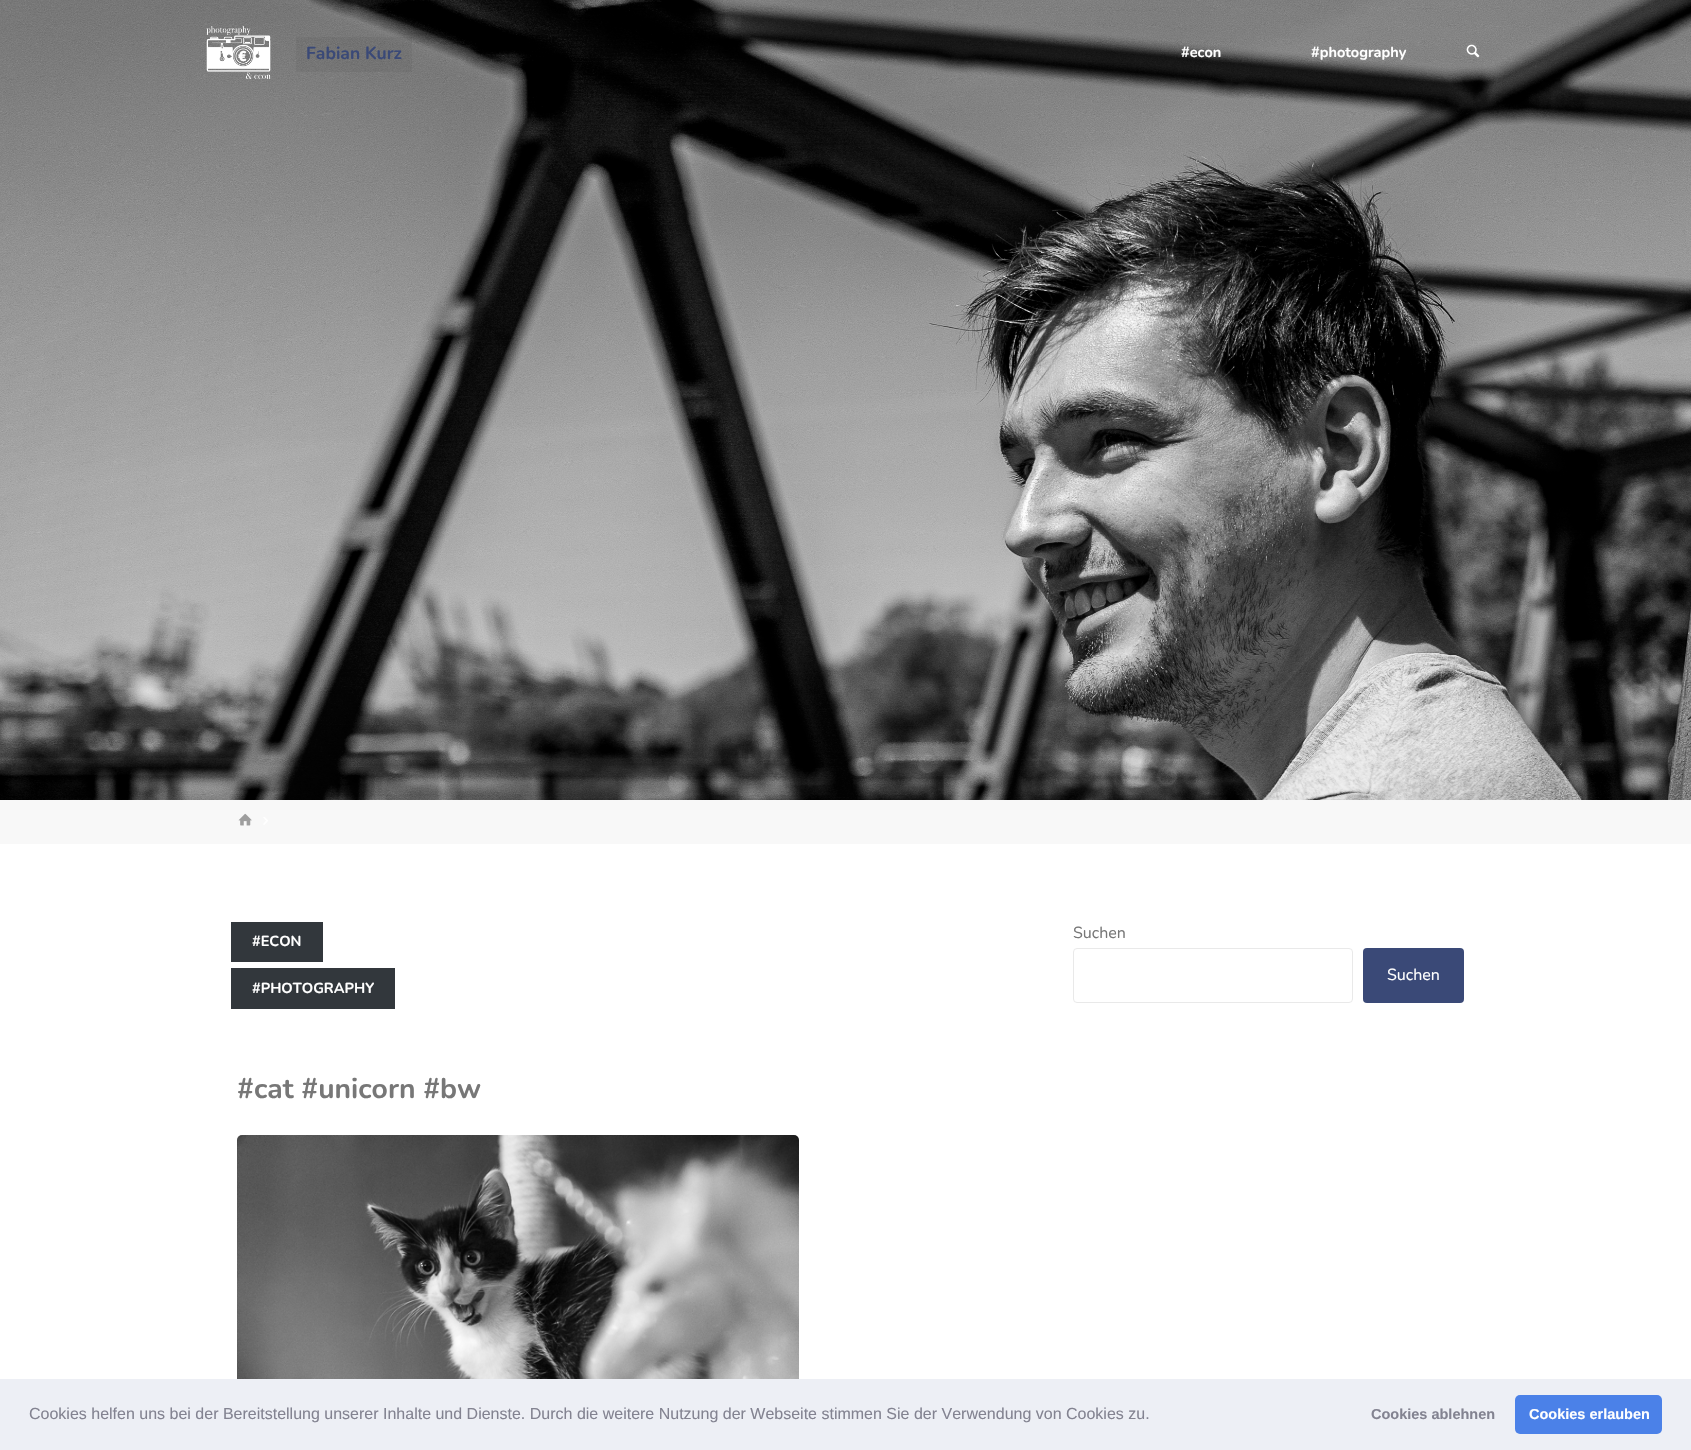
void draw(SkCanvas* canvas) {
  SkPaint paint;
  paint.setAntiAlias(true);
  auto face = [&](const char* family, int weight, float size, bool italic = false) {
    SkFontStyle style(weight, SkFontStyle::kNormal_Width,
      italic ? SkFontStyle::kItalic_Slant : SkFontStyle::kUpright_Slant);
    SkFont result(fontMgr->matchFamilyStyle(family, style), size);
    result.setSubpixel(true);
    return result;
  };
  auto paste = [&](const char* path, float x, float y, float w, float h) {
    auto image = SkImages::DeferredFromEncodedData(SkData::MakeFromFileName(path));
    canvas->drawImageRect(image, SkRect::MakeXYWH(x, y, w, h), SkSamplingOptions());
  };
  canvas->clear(0xffffffff);
  paste("img/1.png", 0, 0, 1691, 800);
  paste("img/2.png", 206, 26, 65, 53);
  paint.setColor(0x0d000000);
  canvas->drawRect(SkRect::MakeXYWH(296, 37, 116, 35), paint);
  paste("img/3.png", 1466, 44, 14, 14);
  paint.setColor(0xfff8f8f8);
  canvas->drawRect(SkRect::MakeXYWH(0, 800, 1691, 44), paint);
  paste("img/4.png", 238, 813, 14, 13);
  paste("img/5.png", 263, 817, 5, 8);
  paint.setColor(0xff32373c);
  canvas->drawRect(SkRect::MakeXYWH(231, 922, 92, 40), paint);
  canvas->drawRect(SkRect::MakeXYWH(231, 968, 164, 41), paint);
  paint.setStroke(true);
  paint.setStrokeWidth(1);
  paint.setColor(0xffe9e9e9);
  canvas->drawRoundRect(SkRect::MakeXYWH(1073.5f, 948.5f, 279, 54), 3.5f, 3.5f, paint);
  paint.setStroke(false);
  paint.setColor(0xff3a4977);
  canvas->drawRoundRect(SkRect::MakeXYWH(1363, 948, 101, 55), 4, 4, paint);
  paste("img/6.png", 237, 1135, 562, 244);
  paint.setColor(0xffedeff5);
  canvas->drawRect(SkRect::MakeXYWH(0, 1379, 1691, 71), paint);
  paint.setColor(0xff4b81e8);
  canvas->drawRoundRect(SkRect::MakeXYWH(1515, 1395, 147, 39), 5, 5, paint);
  auto f0 = face("Nunito", 700, 17.5f);
  paint.setColor(0xff3a4977);
  canvas->drawString("Fabian Kurz", 306, 59, f0, paint);
  auto f1 = face("Nunito", 700, 14.5f);
  paint.setColor(0xffffffff);
  {
    const struct { const char* s; float x, y; } items[] = {
      {"#econ", 1181, 57},
      {"#photography", 1311, 57},
      {"#ECON", 252, 946},
      {"#PHOTOGRAPHY", 252, 993},
    };
    for (auto [s, x, y] : items) {
      canvas->drawString(s, x, y, f1, paint);
    }
  }
  auto f2 = face("Nunito", 400, 16);
  paint.setColor(0xff777777);
  canvas->drawString("Suchen", 1073, 938, f2, paint);
  paint.setColor(0xffffffff);
  canvas->drawString("Suchen", 1387, 980, f2, paint);
  auto f3 = face("Nunito", 700, 28.25f);
  paint.setColor(0xff777777);
  canvas->drawString("#cat #unicorn #bw", 237, 1098, f3, paint);
  auto f4 = face("Liberation Sans", 400, 16);
  paint.setColor(0xff838391);
  canvas->drawString("Cookies helfen uns bei der Bereitstellung unserer Inhalte und Dienste. Durch die weitere Nutzung der Webseite stimmen Sie der Verwendung von Cookies zu.", 29, 1419, f4, paint);
  auto f5 = face("Liberation Sans", 700, 14.5f);
  canvas->drawString("Cookies ablehnen", 1371, 1419, f5, paint);
  paint.setColor(0xffffffff);
  canvas->drawString("Cookies erlauben", 1529, 1419, f5, paint);
}
